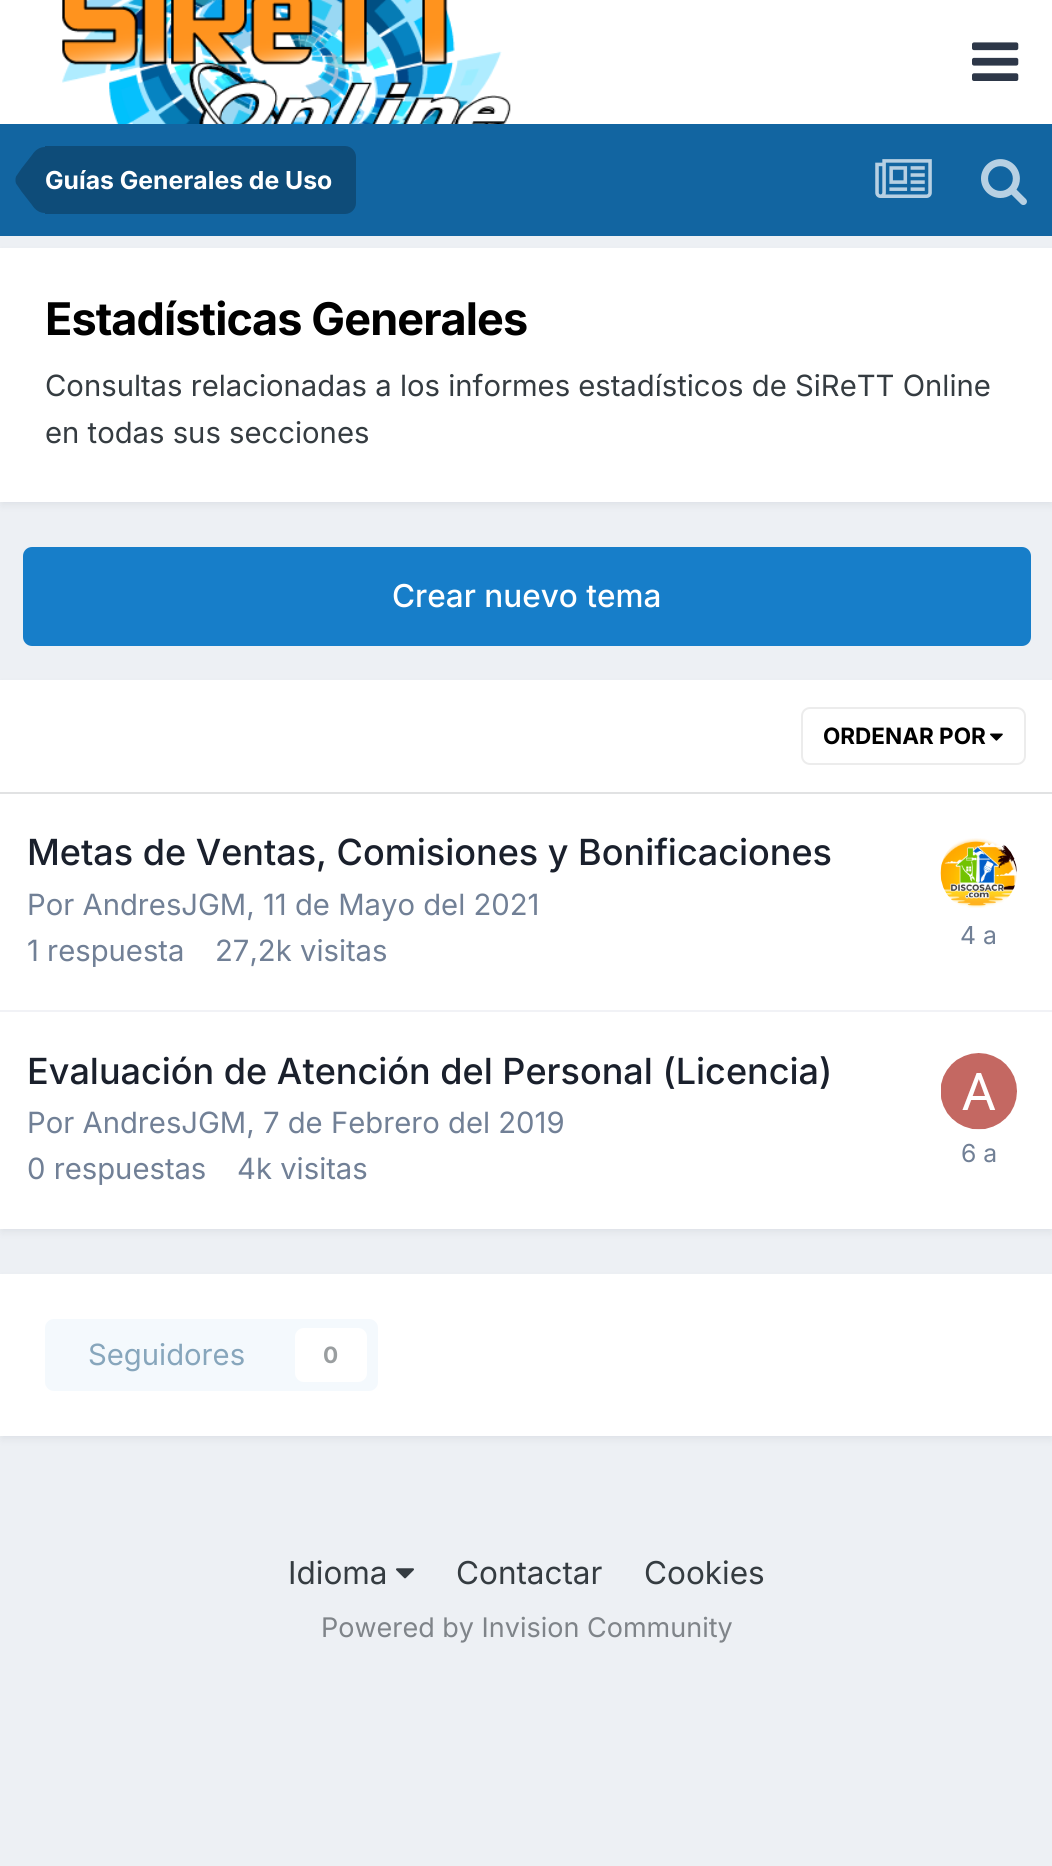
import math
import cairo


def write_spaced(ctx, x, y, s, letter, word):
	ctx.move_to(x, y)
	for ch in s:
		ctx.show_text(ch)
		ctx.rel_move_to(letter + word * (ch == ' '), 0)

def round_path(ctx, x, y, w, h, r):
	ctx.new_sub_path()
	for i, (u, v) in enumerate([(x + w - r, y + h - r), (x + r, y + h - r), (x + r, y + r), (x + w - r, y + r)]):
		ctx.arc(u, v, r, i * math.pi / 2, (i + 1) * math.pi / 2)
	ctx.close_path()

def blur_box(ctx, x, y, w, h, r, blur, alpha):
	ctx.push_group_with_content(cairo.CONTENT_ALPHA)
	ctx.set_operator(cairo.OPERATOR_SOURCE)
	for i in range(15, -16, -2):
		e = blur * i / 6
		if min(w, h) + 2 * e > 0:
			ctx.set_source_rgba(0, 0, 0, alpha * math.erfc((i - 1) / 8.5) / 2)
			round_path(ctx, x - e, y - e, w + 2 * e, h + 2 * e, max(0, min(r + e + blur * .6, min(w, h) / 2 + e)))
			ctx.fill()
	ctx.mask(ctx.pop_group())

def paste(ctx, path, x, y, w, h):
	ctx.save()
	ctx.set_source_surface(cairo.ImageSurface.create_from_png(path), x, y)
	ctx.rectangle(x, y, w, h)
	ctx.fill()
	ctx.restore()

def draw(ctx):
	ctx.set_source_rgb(0.929, 0.941, 0.957)
	ctx.paint()
	ctx.set_source_rgb(1, 1, 1)
	ctx.rectangle(0, 0, 1052, 124)
	ctx.fill()
	paste(ctx, 'media/1.png', 62, 0, 449, 124)
	paste(ctx, 'media/2.png', 972, 42, 47, 39)
	ctx.set_source_rgb(0.071, 0.396, 0.631)
	ctx.rectangle(0, 124, 1052, 112)
	ctx.fill()
	ctx.set_source_rgb(0.055, 0.298, 0.475)
	ctx.new_path()
	ctx.move_to(45, 146)
	ctx.line_to(345, 146)
	ctx.curve_to(351, 146, 356, 151, 356, 157)
	ctx.line_to(356, 203)
	ctx.curve_to(356, 209, 351, 214, 345, 214)
	ctx.line_to(45, 214)
	ctx.close_path()
	ctx.fill()
	ctx.new_path()
	ctx.move_to(45, 180)
	ctx.line_to(45, 213)
	ctx.curve_to(40, 213, 35.5, 210.5, 32, 205)
	ctx.line_to(21.5, 191.5)
	ctx.line_to(16, 183.5)
	ctx.curve_to(15.5, 182, 15.5, 181, 15.5, 180)
	ctx.close_path()
	ctx.fill()
	ctx.new_path()
	ctx.move_to(45, 180)
	ctx.line_to(15.5, 180)
	ctx.curve_to(15.5, 179, 15.5, 178, 16, 176.5)
	ctx.line_to(21.5, 168.5)
	ctx.line_to(32, 155)
	ctx.curve_to(35.5, 149.5, 40, 147, 45, 147)
	ctx.close_path()
	ctx.fill()
	ctx.select_font_face('Inter', cairo.FONT_SLANT_NORMAL, cairo.FONT_WEIGHT_BOLD)
	ctx.set_font_size(24.75)
	ctx.set_source_rgb(1, 1, 1)
	ctx.move_to(45, 189)
	ctx.show_text('Guías Generales de Uso')
	paste(ctx, 'media/3.png', 875, 159, 57, 39)
	paste(ctx, 'media/4.png', 981, 159, 46, 46)
	ctx.set_source_rgb(0.176, 0.216, 0.282)
	blur_box(ctx, 2, 254, 1049, 250, 0, 4.5, 0.1)
	ctx.set_source_rgb(1, 1, 1)
	ctx.rectangle(0, 248, 1052, 254)
	ctx.fill()
	ctx.set_font_size(45)
	ctx.set_source_rgb(0, 0, 0)
	write_spaced(ctx, 45, 335, 'Estadísticas Generales', -0.9, 0)
	ctx.select_font_face('Inter')
	ctx.set_font_size(29.25)
	ctx.set_source_rgb(0.208, 0.235, 0.255)
	ctx.move_to(45, 396)
	ctx.show_text('Consultas relacionadas a los informes estadísticos de SiReTT Online')
	ctx.move_to(45, 443)
	ctx.show_text('en todas sus secciones')
	ctx.set_source_rgb(0.09, 0.494, 0.788)
	round_path(ctx, 23, 547, 1008, 99, 9)
	ctx.fill()
	ctx.select_font_face('Inter Medium')
	ctx.set_font_size(31.5)
	ctx.set_source_rgb(1, 1, 1)
	ctx.move_to(392, 607)
	ctx.show_text('Crear nuevo tema')
	ctx.set_source_rgb(0.176, 0.216, 0.282)
	blur_box(ctx, 2, 686, 1049, 545, 0, 4.5, 0.1)
	ctx.set_source_rgb(1, 1, 1)
	ctx.rectangle(0, 680, 1052, 549)
	ctx.fill()
	ctx.set_source_rgb(0.882, 0.886, 0.89)
	ctx.rectangle(0, 792, 1052, 2)
	ctx.fill()
	paste(ctx, 'media/5.png', 990, 733, 13, 8)
	round_path(ctx, 802, 708, 223, 56, 8)
	ctx.set_source_rgb(0.922, 0.925, 0.925)
	ctx.stroke()
	ctx.select_font_face('Inter', cairo.FONT_SLANT_NORMAL, cairo.FONT_WEIGHT_BOLD)
	ctx.set_font_size(22.5)
	ctx.set_source_rgb(0, 0, 0)
	ctx.move_to(823, 744)
	ctx.show_text('ORDENAR POR')
	ctx.set_source_rgb(0.945, 0.949, 0.961)
	ctx.rectangle(0, 1010, 1052, 2)
	ctx.fill()
	ctx.select_font_face('Inter Medium')
	ctx.set_font_size(36)
	ctx.set_source_rgb(0.102, 0.125, 0.173)
	ctx.move_to(27, 865)
	ctx.show_text('Metas de Ventas, Comisiones y Bonificaciones')
	ctx.select_font_face('Inter')
	ctx.set_font_size(29.25)
	ctx.set_source_rgb(0.443, 0.502, 0.588)
	ctx.move_to(27, 915)
	ctx.show_text('Por AndresJGM, 11 de Mayo del 2021')
	paste(ctx, 'media/6.png', 940, 838, 77, 70)
	ctx.set_font_size(24.75)
	ctx.move_to(960, 944)
	ctx.show_text('4 a')
	ctx.set_font_size(29.25)
	ctx.move_to(27, 961)
	ctx.show_text('1 respuesta')
	ctx.move_to(215, 961)
	ctx.show_text('27,2k visitas')
	ctx.select_font_face('Inter Medium')
	ctx.set_font_size(36)
	ctx.set_source_rgb(0.102, 0.125, 0.173)
	ctx.move_to(27, 1084)
	ctx.show_text('Evaluación de Atención del Personal (Licencia)')
	ctx.select_font_face('Inter')
	ctx.set_font_size(29.25)
	ctx.set_source_rgb(0.443, 0.502, 0.588)
	ctx.move_to(27, 1133)
	ctx.show_text('Por AndresJGM, 7 de Febrero del 2019')
	paste(ctx, 'media/7.png', 941, 1053, 76, 77)
	ctx.set_font_size(24.75)
	ctx.move_to(961, 1162)
	ctx.show_text('6 a')
	ctx.set_font_size(29.25)
	ctx.move_to(27, 1179)
	ctx.show_text('0 respuestas')
	ctx.move_to(237, 1179)
	ctx.show_text('4k visitas')
	ctx.set_source_rgb(0.176, 0.216, 0.282)
	blur_box(ctx, 2, 1280, 1049, 158, 0, 4.5, 0.1)
	ctx.set_source_rgb(1, 1, 1)
	ctx.rectangle(0, 1274, 1052, 162)
	ctx.fill()
	ctx.set_source_rgb(0.957, 0.976, 0.992)
	round_path(ctx, 45, 1319, 333, 72, 9)
	ctx.fill()
	ctx.set_source_rgb(0.529, 0.651, 0.737)
	ctx.move_to(88, 1365)
	ctx.show_text('Seguidores')
	ctx.set_source_rgb(1, 1, 1)
	round_path(ctx, 295, 1328, 72, 54, 9)
	ctx.fill()
	ctx.select_font_face('Inter', cairo.FONT_SLANT_NORMAL, cairo.FONT_WEIGHT_BOLD)
	ctx.set_font_size(22.5)
	ctx.set_source_rgb(0.604, 0.62, 0.627)
	ctx.move_to(323, 1363)
	ctx.show_text('0')
	ctx.select_font_face('Inter')
	ctx.set_font_size(31.5)
	ctx.set_source_rgb(0.208, 0.235, 0.255)
	ctx.move_to(288, 1584)
	ctx.show_text('Idioma')
	paste(ctx, 'media/8.png', 396, 1568, 18, 11)
	ctx.move_to(456, 1584)
	ctx.show_text('Contactar')
	ctx.move_to(644, 1584)
	ctx.show_text('Cookies')
	ctx.set_font_size(27)
	ctx.set_source_rgb(0.498, 0.518, 0.537)
	ctx.move_to(321, 1637)
	ctx.show_text('Powered by Invision Community')


surface = cairo.ImageSurface(cairo.FORMAT_RGB24, 1052, 1866)
ctx = cairo.Context(surface)
options = cairo.FontOptions()
options.set_hint_metrics(cairo.HINT_METRICS_OFF)
options.set_hint_style(cairo.HINT_STYLE_NONE)
ctx.set_font_options(options)
ctx.set_miter_limit(4)
draw(ctx)
surface.write_to_png('image.png')
